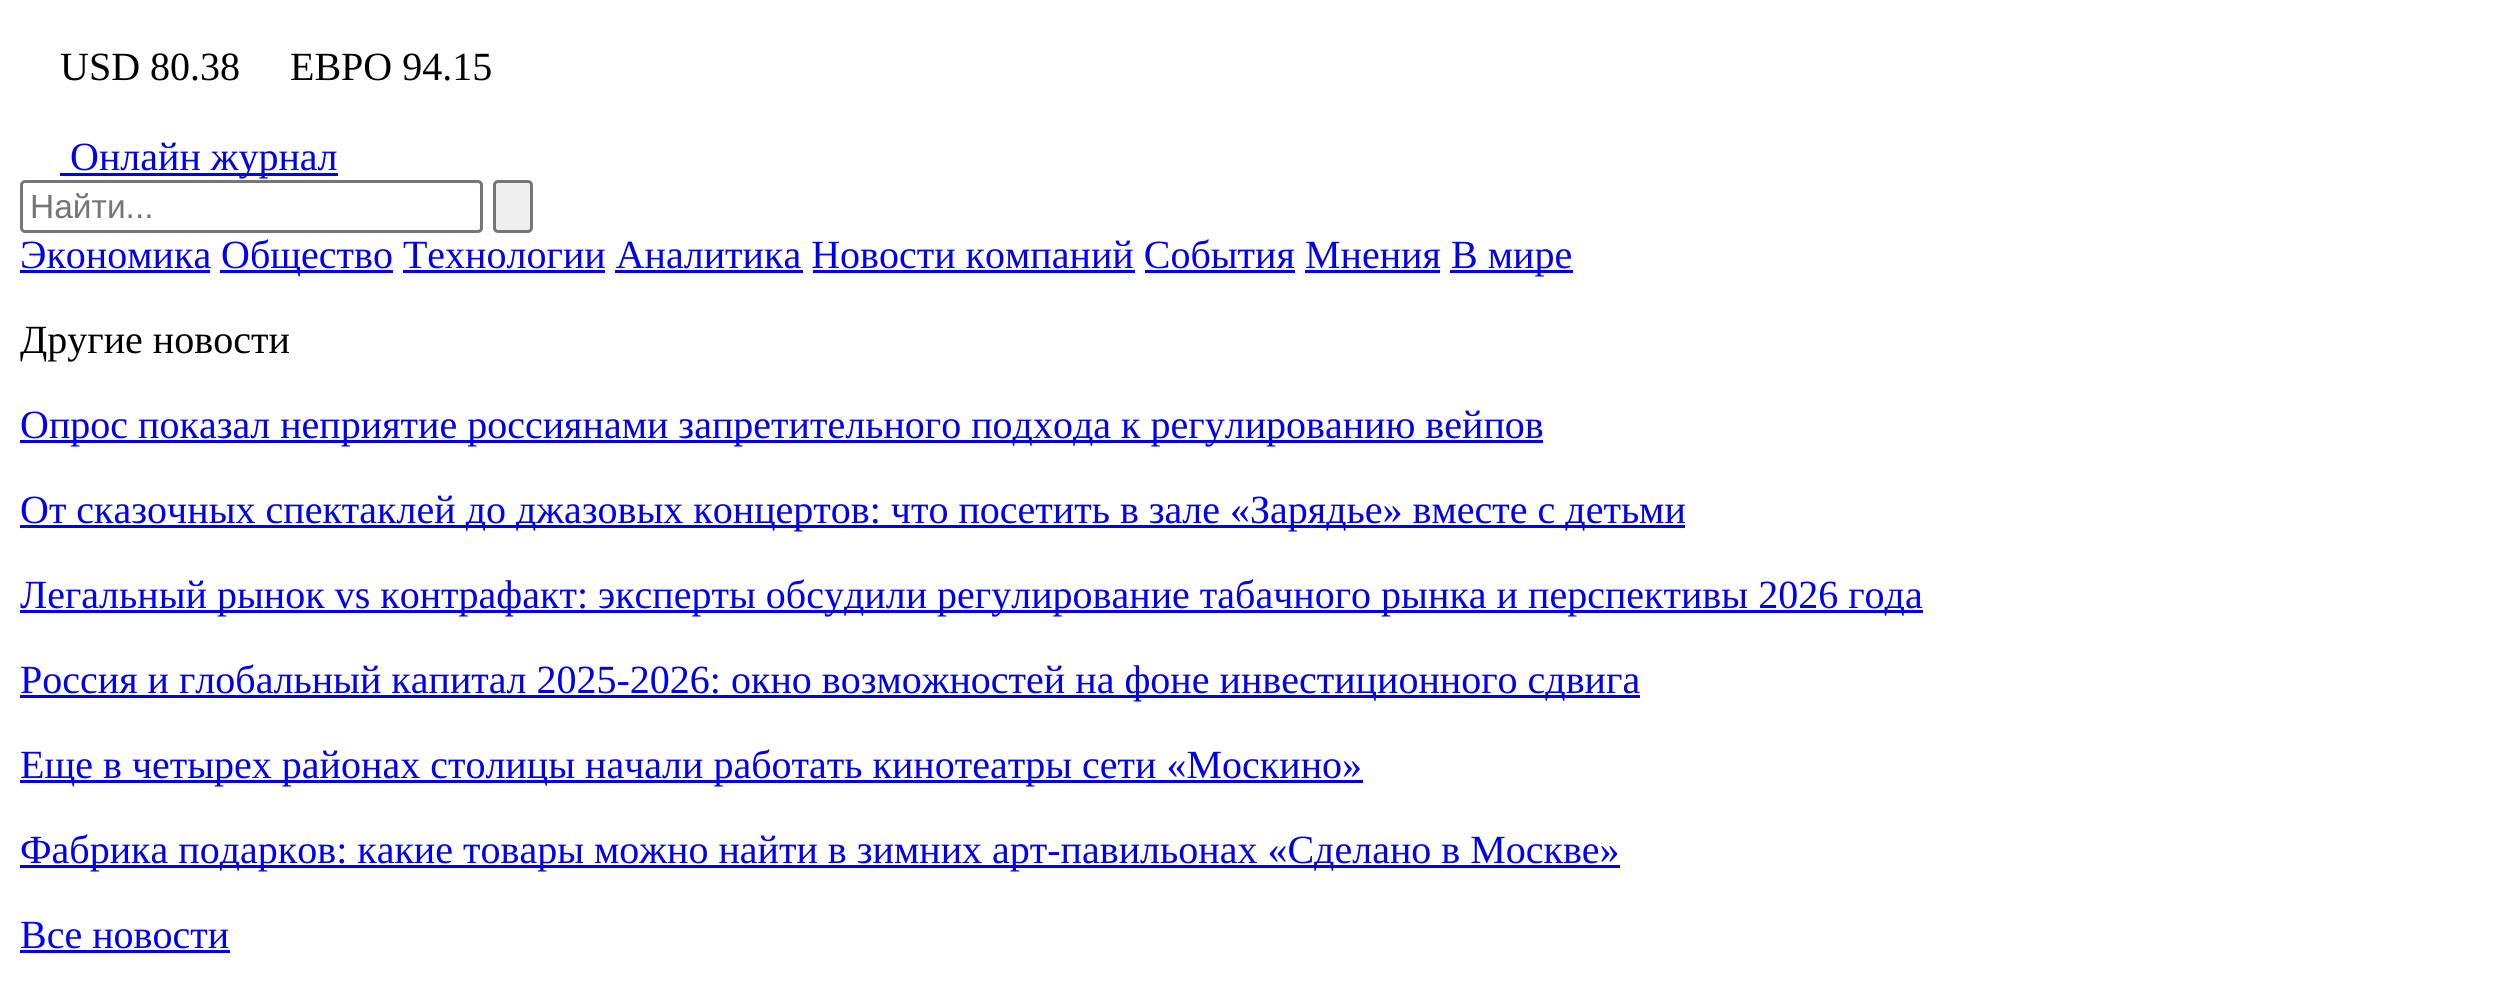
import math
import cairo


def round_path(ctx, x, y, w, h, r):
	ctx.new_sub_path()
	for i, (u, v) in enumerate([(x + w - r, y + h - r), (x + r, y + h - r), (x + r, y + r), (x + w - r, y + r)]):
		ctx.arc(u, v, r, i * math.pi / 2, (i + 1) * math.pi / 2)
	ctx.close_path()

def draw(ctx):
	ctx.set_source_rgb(1, 1, 1)
	ctx.paint()
	ctx.select_font_face('Liberation Serif')
	ctx.set_font_size(40)
	ctx.set_source_rgb(0, 0, 0)
	ctx.move_to(60, 80)
	ctx.show_text('USD 80.38')
	ctx.move_to(290, 80)
	ctx.show_text('ЕВРО 94.15')
	ctx.set_source_rgb(0, 0, 0.933)
	ctx.rectangle(60, 173, 278, 3)
	ctx.fill()
	ctx.move_to(70, 170)
	ctx.show_text('Онлайн журнал')
	round_path(ctx, 21.5, 181.5, 460, 50, 3.5)
	ctx.set_source_rgb(0.463, 0.463, 0.463)
	ctx.set_line_width(3)
	ctx.stroke()
	ctx.select_font_face('Liberation Sans')
	ctx.set_font_size(33.5)
	ctx.set_source_rgb(0.459, 0.459, 0.459)
	ctx.move_to(30, 218)
	ctx.show_text('Найти...')
	ctx.set_source_rgb(0.937, 0.937, 0.937)
	round_path(ctx, 494.5, 181.5, 37, 50, 3.5)
	ctx.fill_preserve()
	ctx.set_source_rgb(0.463, 0.463, 0.463)
	ctx.stroke()
	ctx.select_font_face('Liberation Serif')
	ctx.set_font_size(40)
	ctx.set_source_rgb(0, 0, 0.933)
	ctx.move_to(20, 268)
	ctx.show_text('Экономика')
	ctx.rectangle(20, 270, 190, 3)
	ctx.fill()
	ctx.rectangle(220, 270, 173, 3)
	ctx.fill()
	ctx.move_to(221, 268)
	ctx.show_text('Общество Технологии Аналитика Новости компаний События Мнения')
	ctx.rectangle(1450, 270, 123, 3)
	ctx.fill()
	ctx.move_to(1451, 268)
	ctx.show_text('В мире')
	ctx.rectangle(403, 270, 202, 3)
	ctx.rectangle(615, 270, 188, 3)
	ctx.rectangle(813, 270, 322, 3)
	ctx.rectangle(1145, 270, 150, 3)
	ctx.rectangle(1305, 270, 135, 3)
	ctx.fill()
	ctx.set_source_rgb(0, 0, 0)
	ctx.move_to(20, 353)
	ctx.show_text('Другие новости')
	ctx.set_source_rgb(0, 0, 0.933)
	ctx.rectangle(20, 440, 1523, 3)
	ctx.fill()
	ctx.move_to(20, 438)
	ctx.show_text('Опрос показал неприятие россиянами запретительного подхода к регулированию вейпов')
	ctx.rectangle(20, 525, 1665, 3)
	ctx.fill()
	ctx.move_to(20, 523)
	ctx.show_text('От сказочных спектаклей до джазовых концертов: что посетить в зале «Зарядье» вместе с детьми')
	ctx.rectangle(20, 610, 1903, 3)
	ctx.fill()
	ctx.move_to(20, 608)
	ctx.show_text('Легальный рынок vs контрафакт: эксперты обсудили регулирование табачного рынка и перспективы 2026 года')
	ctx.rectangle(20, 695, 1620, 3)
	ctx.fill()
	ctx.move_to(20, 693)
	ctx.show_text('Россия и глобальный капитал 2025-2026: окно возможностей на фоне инвестиционного сдвига')
	ctx.rectangle(20, 780, 1343, 3)
	ctx.fill()
	ctx.move_to(20, 778)
	ctx.show_text('Еще в четырех районах столицы начали работать кинотеатры сети «Москино»')
	ctx.rectangle(20, 865, 1600, 3)
	ctx.fill()
	ctx.move_to(20, 863)
	ctx.show_text('Фабрика подарков: какие товары можно найти в зимних арт-павильонах «Сделано в Москве»')
	ctx.move_to(20, 948)
	ctx.show_text('Все новости')
	ctx.rectangle(20, 950, 210, 3)
	ctx.fill()


surface = cairo.ImageSurface(cairo.FORMAT_RGB24, 2497, 1003)
ctx = cairo.Context(surface)
options = cairo.FontOptions()
options.set_hint_metrics(cairo.HINT_METRICS_OFF)
options.set_hint_style(cairo.HINT_STYLE_NONE)
ctx.set_font_options(options)
ctx.set_miter_limit(4)
draw(ctx)
surface.write_to_png('image.png')
